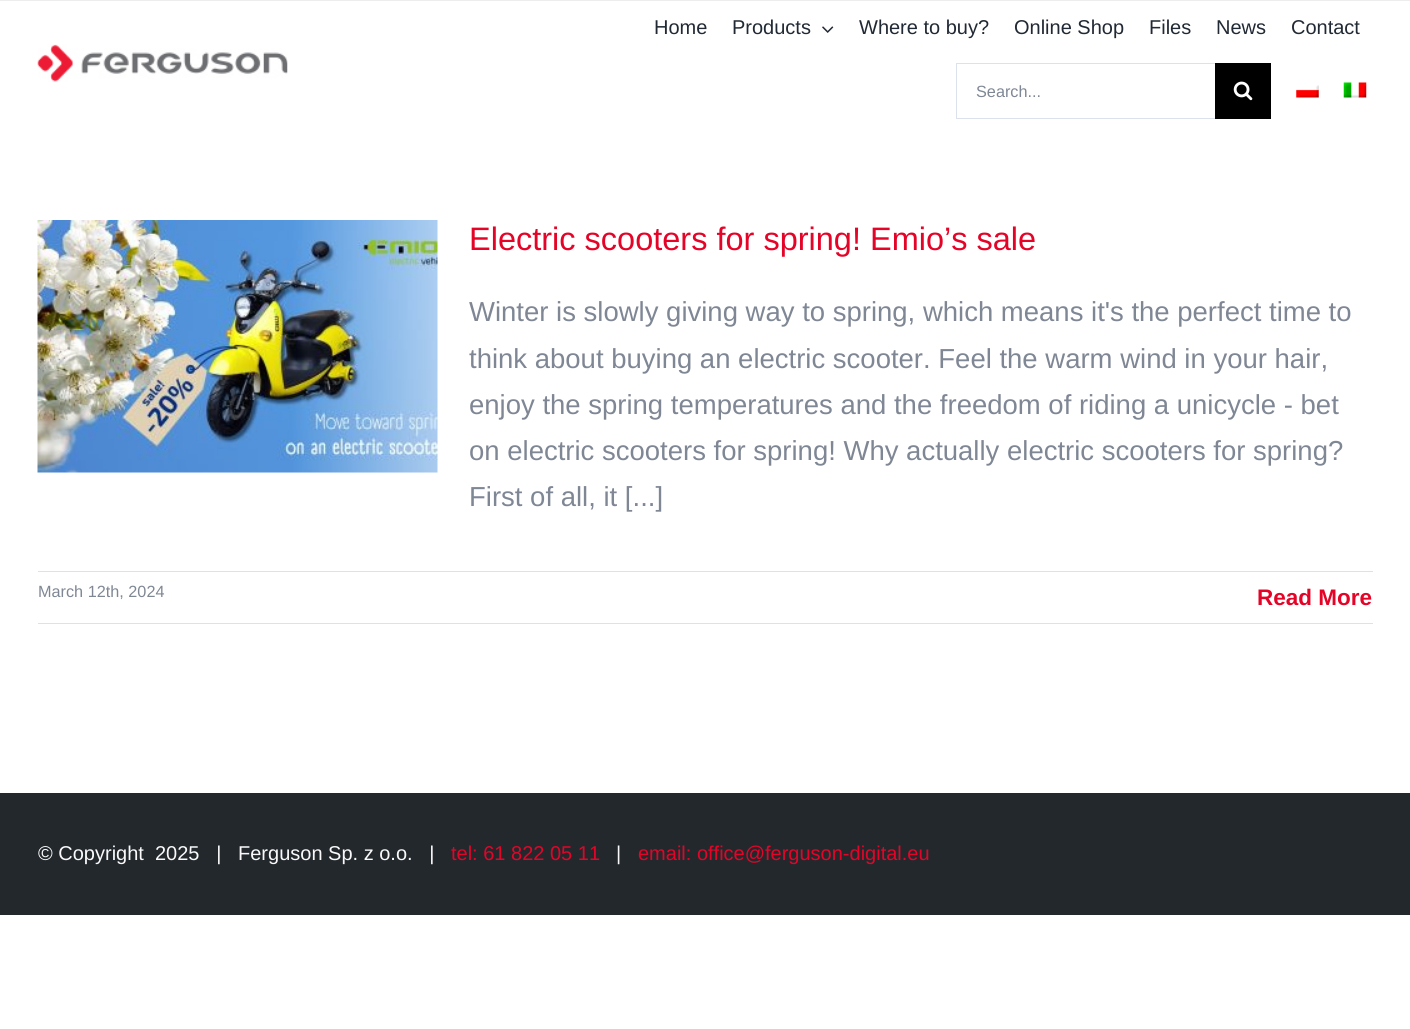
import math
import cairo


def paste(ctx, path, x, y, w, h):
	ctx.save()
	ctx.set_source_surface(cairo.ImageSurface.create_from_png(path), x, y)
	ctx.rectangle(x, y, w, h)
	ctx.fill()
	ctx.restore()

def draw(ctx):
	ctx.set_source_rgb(1, 1, 1)
	ctx.paint()
	ctx.set_source_rgb(0.929, 0.929, 0.929)
	ctx.rectangle(0, 0, 1410, 1)
	ctx.fill()
	paste(ctx, 'media/1.png', 37, 44, 251, 38)
	ctx.select_font_face('Liberation Sans')
	ctx.set_font_size(20)
	ctx.set_source_rgb(0.129, 0.161, 0.204)
	ctx.move_to(654, 34)
	ctx.show_text('Home')
	ctx.move_to(732, 34)
	ctx.show_text('Products')
	paste(ctx, 'media/2.png', 822, 26, 12, 7)
	for x, y, s in [
		(859, 34, 'Where to buy?'),
		(1014, 34, 'Online Shop'),
		(1149, 34, 'Files'),
		(1216, 34, 'News'),
		(1291, 34, 'Contact'),
	]:
		ctx.move_to(x, y)
		ctx.show_text(s)
	ctx.set_source_rgb(0.859, 0.886, 0.918)
	ctx.rectangle(956, 63, 259, 1)
	ctx.rectangle(956, 118, 259, 1)
	ctx.rectangle(956, 63, 1, 56)
	ctx.fill()
	ctx.set_font_size(16.25)
	ctx.set_source_rgb(0.498, 0.529, 0.584)
	ctx.move_to(976, 97)
	ctx.show_text('Search...')
	ctx.set_source_rgb(0, 0, 0)
	ctx.rectangle(1215, 63, 56, 56)
	ctx.fill()
	paste(ctx, 'media/3.png', 1233, 81, 20, 20)
	paste(ctx, 'media/4.png', 1296, 85, 23, 13)
	paste(ctx, 'media/5.png', 1343, 82, 24, 16)
	paste(ctx, 'media/6.png', 37, 220, 401, 253)
	ctx.set_font_size(32.5)
	ctx.set_source_rgb(0.894, 0.016, 0.157)
	ctx.move_to(469, 250)
	ctx.show_text('Electric scooters for spring! Emio’s sale')
	ctx.set_font_size(27.5)
	ctx.set_source_rgb(0.498, 0.529, 0.584)
	for x, y, s in [
		(469, 321, 'Winter is slowly giving way to spring, which means it\'s the perfect time to'),
		(469, 368, 'think about buying an electric scooter. Feel the warm wind in your hair,'),
		(469, 414, 'enjoy the spring temperatures and the freedom of riding a unicycle - bet'),
		(469, 460, 'on electric scooters for spring! Why actually electric scooters for spring?'),
		(469, 506, 'First of all, it [...]'),
	]:
		ctx.move_to(x, y)
		ctx.show_text(s)
	ctx.set_source_rgb(0.859, 0.886, 0.918)
	ctx.rectangle(38, 571, 1335, 1)
	ctx.fill()
	ctx.rectangle(38, 623, 1335, 1)
	ctx.fill()
	ctx.set_font_size(16.25)
	ctx.set_source_rgb(0.498, 0.529, 0.584)
	ctx.move_to(38, 597)
	ctx.show_text('March 12th, 2024')
	ctx.select_font_face('Liberation Sans', cairo.FONT_SLANT_NORMAL, cairo.FONT_WEIGHT_BOLD)
	ctx.set_font_size(22.5)
	ctx.set_source_rgb(0.894, 0.016, 0.157)
	ctx.move_to(1257, 605)
	ctx.show_text('Read More')
	ctx.set_source_rgb(0.137, 0.157, 0.176)
	ctx.rectangle(0, 793, 1410, 122)
	ctx.fill()
	ctx.select_font_face('Liberation Sans')
	ctx.set_font_size(20)
	ctx.set_source_rgb(0.976, 0.976, 0.976)
	ctx.move_to(38, 860)
	ctx.show_text('© Copyright')
	ctx.move_to(155, 860)
	ctx.show_text('2025   |   Ferguson Sp. z o.o.   |')
	ctx.set_source_rgb(0.894, 0.016, 0.157)
	ctx.move_to(451, 860)
	ctx.show_text('tel: 61 822 05 11')
	ctx.set_source_rgb(0.976, 0.976, 0.976)
	ctx.move_to(616, 860)
	ctx.show_text('|')
	ctx.set_source_rgb(0.894, 0.016, 0.157)
	ctx.move_to(638, 860)
	ctx.show_text('email: office@ferguson-digital.eu')


surface = cairo.ImageSurface(cairo.FORMAT_RGB24, 1410, 1029)
ctx = cairo.Context(surface)
options = cairo.FontOptions()
options.set_hint_metrics(cairo.HINT_METRICS_OFF)
options.set_hint_style(cairo.HINT_STYLE_NONE)
ctx.set_font_options(options)
ctx.set_miter_limit(4)
draw(ctx)
surface.write_to_png('image.png')
